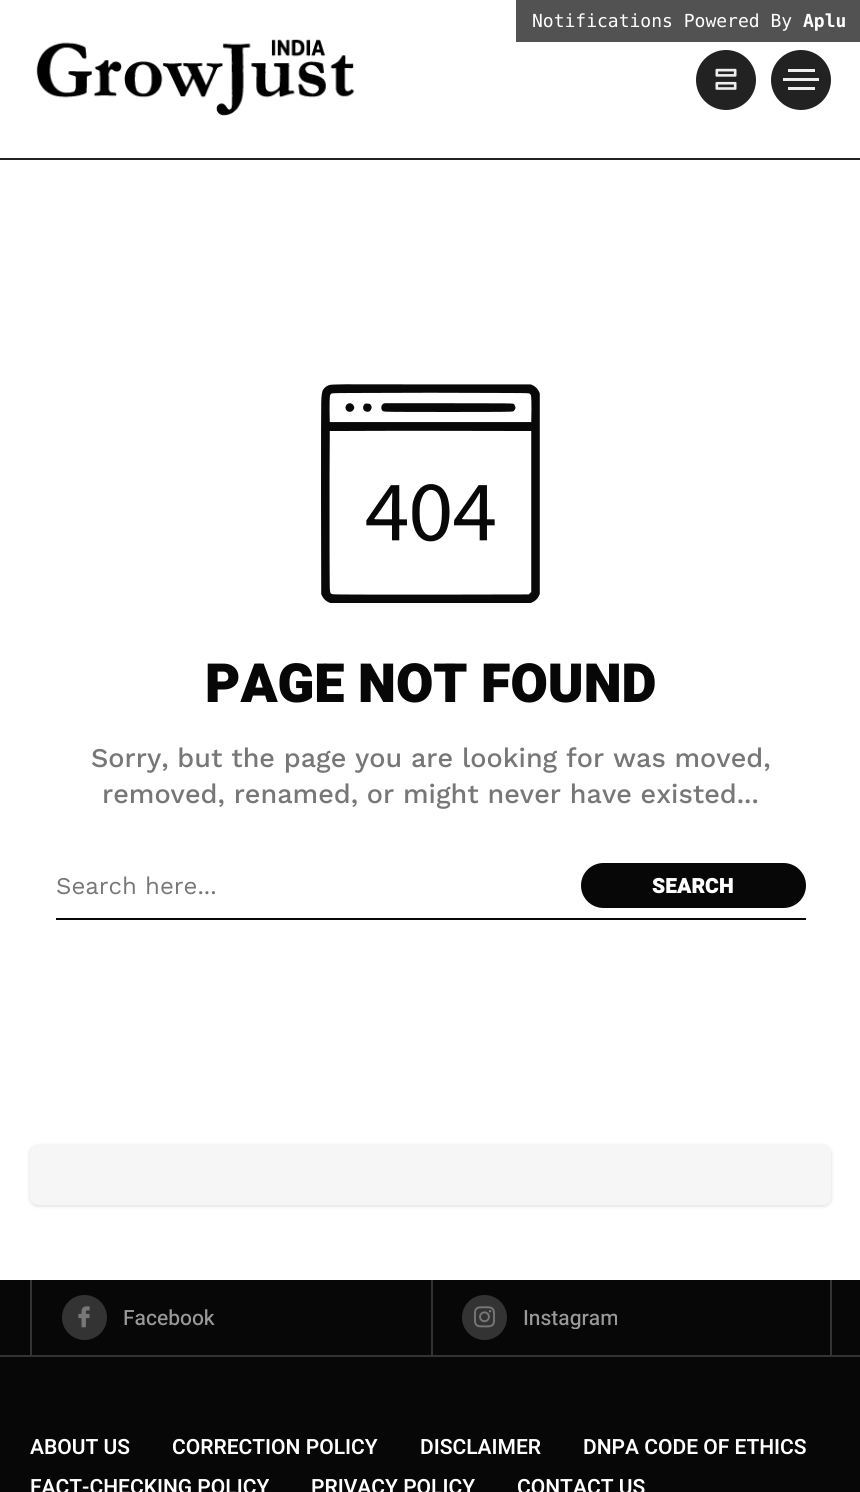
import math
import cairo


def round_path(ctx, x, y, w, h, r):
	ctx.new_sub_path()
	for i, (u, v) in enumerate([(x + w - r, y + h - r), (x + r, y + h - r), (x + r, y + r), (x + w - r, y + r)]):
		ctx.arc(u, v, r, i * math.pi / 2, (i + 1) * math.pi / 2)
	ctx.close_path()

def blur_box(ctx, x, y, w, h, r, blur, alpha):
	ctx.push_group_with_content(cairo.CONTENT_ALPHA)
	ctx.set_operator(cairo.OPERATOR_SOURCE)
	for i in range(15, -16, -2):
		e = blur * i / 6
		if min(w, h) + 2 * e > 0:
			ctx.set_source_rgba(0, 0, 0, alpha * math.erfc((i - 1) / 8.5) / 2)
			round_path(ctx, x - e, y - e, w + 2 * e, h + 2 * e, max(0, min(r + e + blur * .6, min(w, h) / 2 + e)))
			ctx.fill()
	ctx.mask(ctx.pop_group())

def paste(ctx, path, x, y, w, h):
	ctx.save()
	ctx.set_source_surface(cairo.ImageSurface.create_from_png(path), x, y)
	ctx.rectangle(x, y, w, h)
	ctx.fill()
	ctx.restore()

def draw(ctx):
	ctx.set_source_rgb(1, 1, 1)
	ctx.paint()
	ctx.set_source_rgb(0.322, 0.322, 0.322)
	ctx.rectangle(516, 0, 344, 42)
	ctx.fill()
	ctx.select_font_face('DejaVu Sans Mono')
	ctx.set_font_size(18)
	ctx.set_source_rgb(1, 1, 1)
	ctx.move_to(532, 27)
	ctx.show_text('Notifications Powered By')
	ctx.select_font_face('DejaVu Sans Mono', cairo.FONT_SLANT_NORMAL, cairo.FONT_WEIGHT_BOLD)
	ctx.move_to(803, 27)
	ctx.show_text('Aplu')
	ctx.set_source_rgb(0.133, 0.133, 0.133)
	ctx.rectangle(0, 158, 860, 2)
	ctx.fill()
	paste(ctx, 'media/1.png', 36, 39, 319, 77)
	ctx.arc(726, 80, 30, 0, 2 * math.pi)
	ctx.fill()
	paste(ctx, 'media/2.png', 715, 68, 22, 22)
	ctx.arc(801, 80, 30, 0, 2 * math.pi)
	ctx.fill()
	ctx.set_source_rgb(0.933, 0.933, 0.933)
	ctx.rectangle(783, 78, 36, 3)
	ctx.rectangle(788, 69, 27, 3)
	ctx.rectangle(788, 87, 27, 3)
	ctx.fill()
	paste(ctx, 'media/3.png', 321, 384, 219, 219)
	ctx.select_font_face('Heebo Black')
	ctx.set_font_size(54)
	ctx.set_source_rgb(0.031, 0.031, 0.031)
	ctx.move_to(205, 702)
	ctx.show_text('PAGE NOT FOUND')
	ctx.select_font_face('Work Sans Medium')
	ctx.set_font_size(27)
	ctx.set_source_rgb(0.467, 0.467, 0.467)
	ctx.move_to(91, 767)
	ctx.show_text('Sorry, but the page you are looking for was moved,')
	ctx.move_to(102, 803)
	ctx.show_text('removed, renamed, or might never have existed...')
	ctx.set_source_rgb(0.031, 0.031, 0.031)
	ctx.rectangle(56, 918, 750, 2)
	ctx.fill()
	ctx.select_font_face('Work Sans')
	ctx.set_font_size(24)
	ctx.set_source_rgb(0.467, 0.467, 0.467)
	ctx.move_to(56, 894)
	ctx.show_text('Search here...')
	ctx.set_source_rgb(0.031, 0.031, 0.031)
	round_path(ctx, 581, 863, 225, 45, 22.5)
	ctx.fill()
	ctx.select_font_face('Heebo Black')
	ctx.set_font_size(21)
	ctx.set_source_rgb(1, 1, 1)
	ctx.move_to(652, 893)
	ctx.show_text('SEARCH')
	ctx.set_source_rgb(0, 0, 0)
	blur_box(ctx, 30, 1146, 801, 60, 8, 2, 0.15)
	ctx.set_source_rgb(0.961, 0.961, 0.961)
	round_path(ctx, 30, 1145, 801, 60, 8)
	ctx.fill()
	ctx.set_source_rgb(0.031, 0.031, 0.031)
	ctx.rectangle(0, 1280, 860, 212)
	ctx.fill()
	ctx.set_source_rgb(0.2, 0.2, 0.2)
	ctx.rectangle(0, 1355, 860, 2)
	ctx.rectangle(30, 1280, 2, 76)
	ctx.rectangle(431, 1280, 2, 76)
	ctx.fill()
	ctx.arc(84.5, 1317.5, 22.5, 0, 2 * math.pi)
	ctx.fill()
	paste(ctx, 'media/4.png', 78, 1306, 12, 22)
	ctx.select_font_face('Heebo Medium')
	ctx.set_source_rgb(0.6, 0.6, 0.6)
	ctx.move_to(123, 1325)
	ctx.show_text('Facebook')
	ctx.set_source_rgb(0.2, 0.2, 0.2)
	ctx.rectangle(830, 1280, 2, 76)
	ctx.fill()
	ctx.arc(484.5, 1317.5, 22.5, 0, 2 * math.pi)
	ctx.fill()
	paste(ctx, 'media/5.png', 474, 1306, 21, 22)
	ctx.save()
	ctx.rectangle(524, 1308, 94, 21)
	ctx.clip()
	ctx.set_source_rgb(0.6, 0.6, 0.6)
	ctx.move_to(523, 1325)
	ctx.show_text('Instagram')
	ctx.restore()
	ctx.select_font_face('Heebo SemiBold')
	ctx.set_source_rgb(1, 1, 1)
	for x, y, s in [
		(30, 1454, 'ABOUT US'),
		(172, 1454, 'CORRECTION POLICY'),
		(420, 1454, 'DISCLAIMER'),
		(583, 1454, 'DNPA CODE OF ETHICS'),
		(30, 1494, 'FACT-CHECKING POLICY'),
		(311, 1494, 'PRIVACY POLICY'),
		(517, 1494, 'CONTACT US'),
	]:
		ctx.move_to(x, y)
		ctx.show_text(s)


surface = cairo.ImageSurface(cairo.FORMAT_RGB24, 860, 1492)
ctx = cairo.Context(surface)
options = cairo.FontOptions()
options.set_hint_metrics(cairo.HINT_METRICS_OFF)
options.set_hint_style(cairo.HINT_STYLE_NONE)
ctx.set_font_options(options)
ctx.set_miter_limit(4)
draw(ctx)
surface.write_to_png('image.png')
